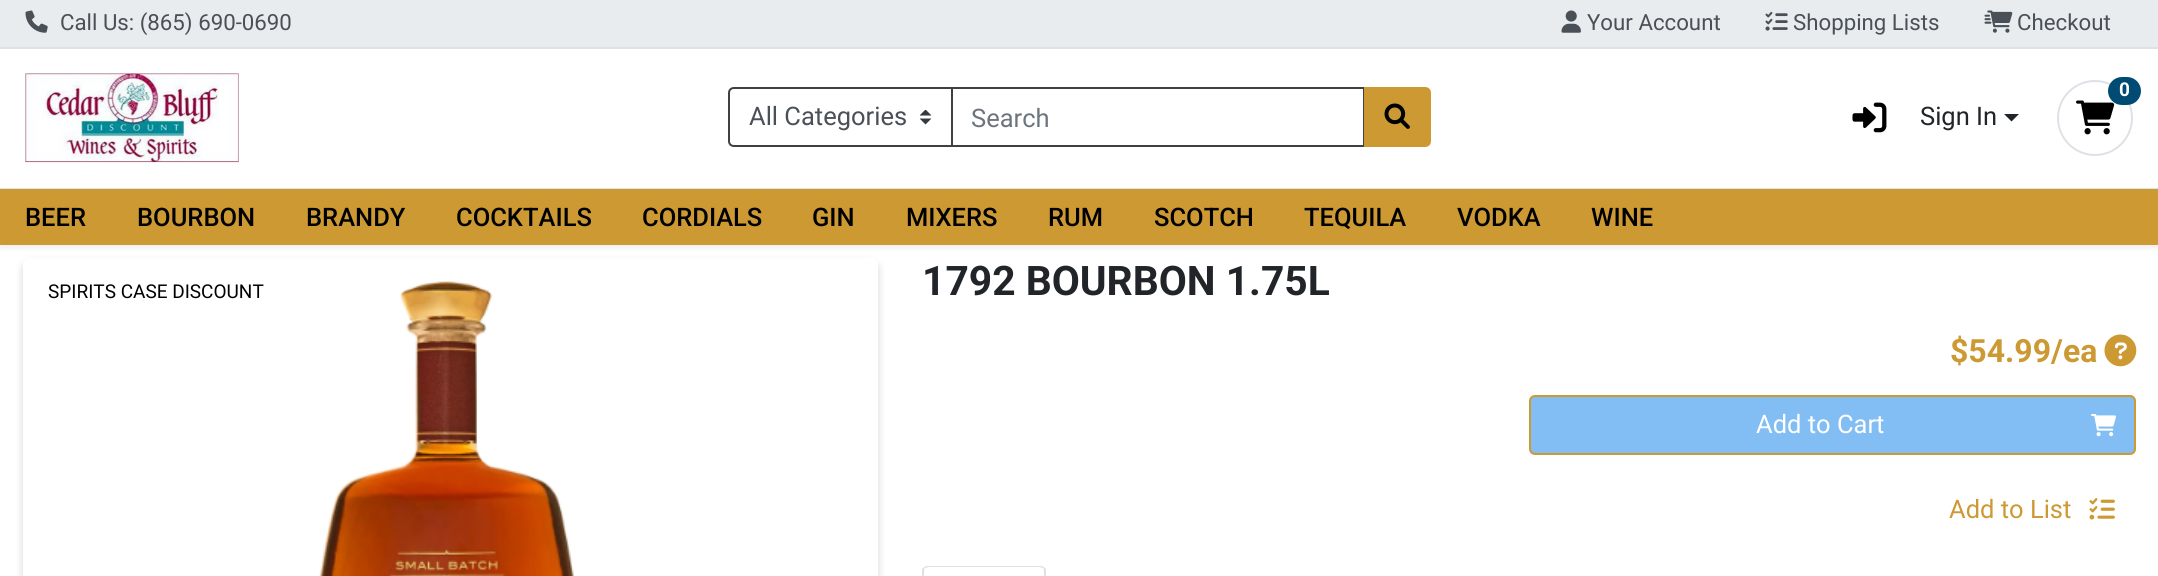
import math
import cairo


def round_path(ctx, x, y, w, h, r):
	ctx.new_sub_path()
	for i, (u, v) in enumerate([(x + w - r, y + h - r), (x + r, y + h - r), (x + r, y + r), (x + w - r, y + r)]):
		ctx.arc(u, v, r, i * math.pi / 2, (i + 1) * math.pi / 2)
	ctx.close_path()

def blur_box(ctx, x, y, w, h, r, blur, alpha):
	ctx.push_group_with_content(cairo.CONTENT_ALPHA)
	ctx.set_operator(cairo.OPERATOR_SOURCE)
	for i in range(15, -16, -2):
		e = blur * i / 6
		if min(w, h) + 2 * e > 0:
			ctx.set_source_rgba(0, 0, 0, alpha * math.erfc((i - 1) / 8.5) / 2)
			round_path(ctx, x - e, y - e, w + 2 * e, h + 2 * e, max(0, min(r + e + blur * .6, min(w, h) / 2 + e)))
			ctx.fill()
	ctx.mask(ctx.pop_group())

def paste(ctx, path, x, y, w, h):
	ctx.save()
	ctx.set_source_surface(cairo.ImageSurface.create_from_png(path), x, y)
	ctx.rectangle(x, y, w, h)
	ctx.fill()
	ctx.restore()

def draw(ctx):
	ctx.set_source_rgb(1, 1, 1)
	ctx.paint()
	ctx.set_source_rgb(0, 0, 0)
	blur_box(ctx, 0, 3, 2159, 245, 0, 3, 0.07)
	ctx.set_source_rgb(1, 1, 1)
	ctx.rectangle(0, 49, 2158, 139)
	ctx.fill()
	ctx.set_source_rgb(0.914, 0.925, 0.937)
	ctx.rectangle(0, 0, 2158, 47)
	ctx.fill()
	ctx.set_source_rgb(0.871, 0.886, 0.902)
	ctx.rectangle(0, 47, 2158, 2)
	ctx.fill()
	paste(ctx, 'media/1.png', 25, 10, 23, 23)
	ctx.select_font_face('Roboto')
	ctx.set_font_size(22.25)
	ctx.set_source_rgb(0.286, 0.314, 0.341)
	ctx.move_to(60, 30)
	ctx.show_text('Call Us: (865) 690-0690')
	paste(ctx, 'media/2.png', 1561, 10, 20, 23)
	ctx.move_to(1587, 30)
	ctx.show_text('Your Account')
	paste(ctx, 'media/3.png', 1765, 11, 23, 20)
	ctx.move_to(1793, 30)
	ctx.show_text('Shopping Lists')
	paste(ctx, 'media/4.png', 1984, 10, 29, 23)
	ctx.move_to(2017, 30)
	ctx.show_text('Checkout')
	ctx.set_source_rgb(0.871, 0.886, 0.902)
	ctx.rectangle(0, 188, 2158, 1)
	ctx.fill()
	paste(ctx, 'media/5.png', 25, 73, 214, 90)
	ctx.rectangle(952, 88, 412, 58)
	ctx.set_source_rgb(0.251, 0.251, 0.251)
	ctx.stroke()
	ctx.set_source_rgb(1, 1, 1)
	ctx.new_path()
	ctx.move_to(734, 87)
	ctx.line_to(953, 87)
	ctx.line_to(953, 147)
	ctx.line_to(734, 147)
	ctx.curve_to(730.5, 147, 728, 144.5, 728, 141)
	ctx.line_to(728, 93)
	ctx.curve_to(728, 89.5, 730.5, 87, 734, 87)
	ctx.close_path()
	ctx.fill()
	paste(ctx, 'media/6.png', 920, 110, 12, 15)
	ctx.new_path()
	ctx.move_to(734, 88)
	ctx.line_to(952, 88)
	ctx.line_to(952, 146)
	ctx.line_to(734, 146)
	ctx.curve_to(731, 146, 729, 144, 729, 141)
	ctx.line_to(729, 93)
	ctx.curve_to(729, 90, 731, 88, 734, 88)
	ctx.close_path()
	ctx.set_source_rgb(0.251, 0.251, 0.251)
	ctx.stroke()
	ctx.set_font_size(25.5)
	ctx.set_source_rgb(0.286, 0.314, 0.341)
	ctx.move_to(749, 125)
	ctx.show_text('All Categories')
	ctx.set_source_rgb(0.424, 0.459, 0.49)
	ctx.move_to(971, 127)
	ctx.show_text('Search')
	ctx.set_source_rgb(0.8, 0.6, 0.2)
	ctx.new_path()
	ctx.move_to(1365, 88)
	ctx.line_to(1425, 88)
	ctx.curve_to(1428, 88, 1430, 90, 1430, 93)
	ctx.line_to(1430, 141)
	ctx.curve_to(1430, 144, 1428, 146, 1425, 146)
	ctx.line_to(1365, 146)
	ctx.close_path()
	ctx.fill_preserve()
	ctx.stroke()
	paste(ctx, 'media/7.png', 1384, 103, 26, 26)
	ctx.arc(2095, 118, 37, 0, 2 * math.pi)
	ctx.set_source_rgb(0.871, 0.886, 0.902)
	ctx.stroke()
	paste(ctx, 'media/8.png', 2076, 100, 39, 35)
	ctx.set_source_rgb(0, 0.294, 0.451)
	round_path(ctx, 2108, 77, 33, 28, 14)
	ctx.fill()
	ctx.select_font_face('Roboto', cairo.FONT_SLANT_NORMAL, cairo.FONT_WEIGHT_BOLD)
	ctx.set_font_size(19)
	ctx.set_source_rgb(1, 1, 1)
	ctx.move_to(2119, 96)
	ctx.show_text('0')
	paste(ctx, 'media/9.png', 1852, 102, 35, 31)
	ctx.select_font_face('Roboto')
	ctx.set_font_size(25.5)
	ctx.set_source_rgb(0.129, 0.145, 0.161)
	ctx.move_to(1920, 125)
	ctx.show_text('Sign In')
	ctx.new_path()
	ctx.move_to(2004, 114)
	ctx.line_to(2019, 114)
	ctx.line_to(2011.5, 121.5)
	ctx.close_path()
	ctx.fill()
	ctx.set_source_rgb(0.8, 0.6, 0.2)
	ctx.rectangle(0, 189, 2158, 56)
	ctx.fill()
	ctx.select_font_face('Roboto Medium')
	ctx.set_source_rgb(0, 0, 0)
	for x, y, s in [
		(25, 226, 'BEER'),
		(137, 226, 'BOURBON'),
		(306, 226, 'BRANDY'),
		(456, 226, 'COCKTAILS'),
		(642, 226, 'CORDIALS'),
		(812, 226, 'GIN'),
		(906, 226, 'MIXERS'),
		(1048, 226, 'RUM'),
		(1154, 226, 'SCOTCH'),
		(1304, 226, 'TEQUILA'),
		(1457, 226, 'VODKA'),
		(1591, 226, 'WINE'),
	]:
		ctx.move_to(x, y)
		ctx.show_text(s)
	ctx.set_source_rgb(0, 0, 0)
	blur_box(ctx, 23, 263, 855, 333, 6, 4.5, 0.16)
	ctx.set_source_rgb(1, 1, 1)
	round_path(ctx, 23, 258, 855, 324, 6)
	ctx.fill()
	paste(ctx, 'media/10.png', 319, 281, 256, 295)
	ctx.select_font_face('Roboto')
	ctx.set_font_size(19)
	ctx.set_source_rgb(0, 0, 0)
	ctx.move_to(48, 298)
	ctx.show_text('SPIRITS CASE DISCOUNT')
	ctx.select_font_face('Roboto', cairo.FONT_SLANT_NORMAL, cairo.FONT_WEIGHT_BOLD)
	ctx.set_font_size(40.75)
	ctx.set_source_rgb(0.129, 0.145, 0.161)
	ctx.move_to(922, 295)
	ctx.show_text('1792 BOURBON 1.75L')
	ctx.set_font_size(32)
	ctx.set_source_rgb(0.8, 0.6, 0.2)
	ctx.move_to(1950, 362)
	ctx.show_text('$54.99/ea')
	paste(ctx, 'media/11.png', 2104, 334, 33, 33)
	ctx.set_source_rgb(0.51, 0.745, 0.953)
	round_path(ctx, 1530, 396, 605, 58, 5)
	ctx.fill_preserve()
	ctx.set_source_rgb(0.8, 0.6, 0.2)
	ctx.stroke()
	ctx.select_font_face('Roboto')
	ctx.set_font_size(25.5)
	ctx.set_source_rgb(1, 1, 1)
	ctx.move_to(1756, 433)
	ctx.show_text('Add to Cart')
	paste(ctx, 'media/12.png', 2091, 414, 25, 23)
	ctx.set_source_rgb(0.8, 0.6, 0.2)
	ctx.move_to(1949, 518)
	ctx.show_text('Add to List')
	paste(ctx, 'media/13.png', 2089, 498, 26, 22)
	ctx.set_source_rgb(0.871, 0.886, 0.902)
	ctx.new_path()
	ctx.move_to(929, 566)
	ctx.curve_to(927, 566, 926, 566, 924, 567)
	ctx.line_to(925, 568)
	ctx.curve_to(926, 568, 928, 567, 929, 567)
	ctx.line_to(1039, 567)
	ctx.curve_to(1040, 567, 1042, 568, 1043, 568)
	ctx.line_to(1044, 567)
	ctx.curve_to(1042, 566, 1041, 566, 1039, 566)
	ctx.close_path()
	ctx.fill()
	ctx.new_path()
	ctx.move_to(1044, 567)
	ctx.line_to(1046, 569)
	ctx.line_to(1046, 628)
	ctx.line_to(1044, 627)
	ctx.line_to(1044, 572)
	ctx.curve_to(1044, 570, 1044, 569, 1043, 568)
	ctx.close_path()
	ctx.fill()
	ctx.new_path()
	ctx.move_to(922, 569)
	ctx.line_to(924, 567)
	ctx.line_to(925, 568)
	ctx.curve_to(924, 569, 924, 570, 924, 572)
	ctx.line_to(924, 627)
	ctx.line_to(922, 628)
	ctx.close_path()
	ctx.fill()


surface = cairo.ImageSurface(cairo.FORMAT_RGB24, 2158, 576)
ctx = cairo.Context(surface)
options = cairo.FontOptions()
options.set_hint_metrics(cairo.HINT_METRICS_OFF)
options.set_hint_style(cairo.HINT_STYLE_NONE)
ctx.set_font_options(options)
ctx.set_miter_limit(4)
draw(ctx)
surface.write_to_png('image.png')
